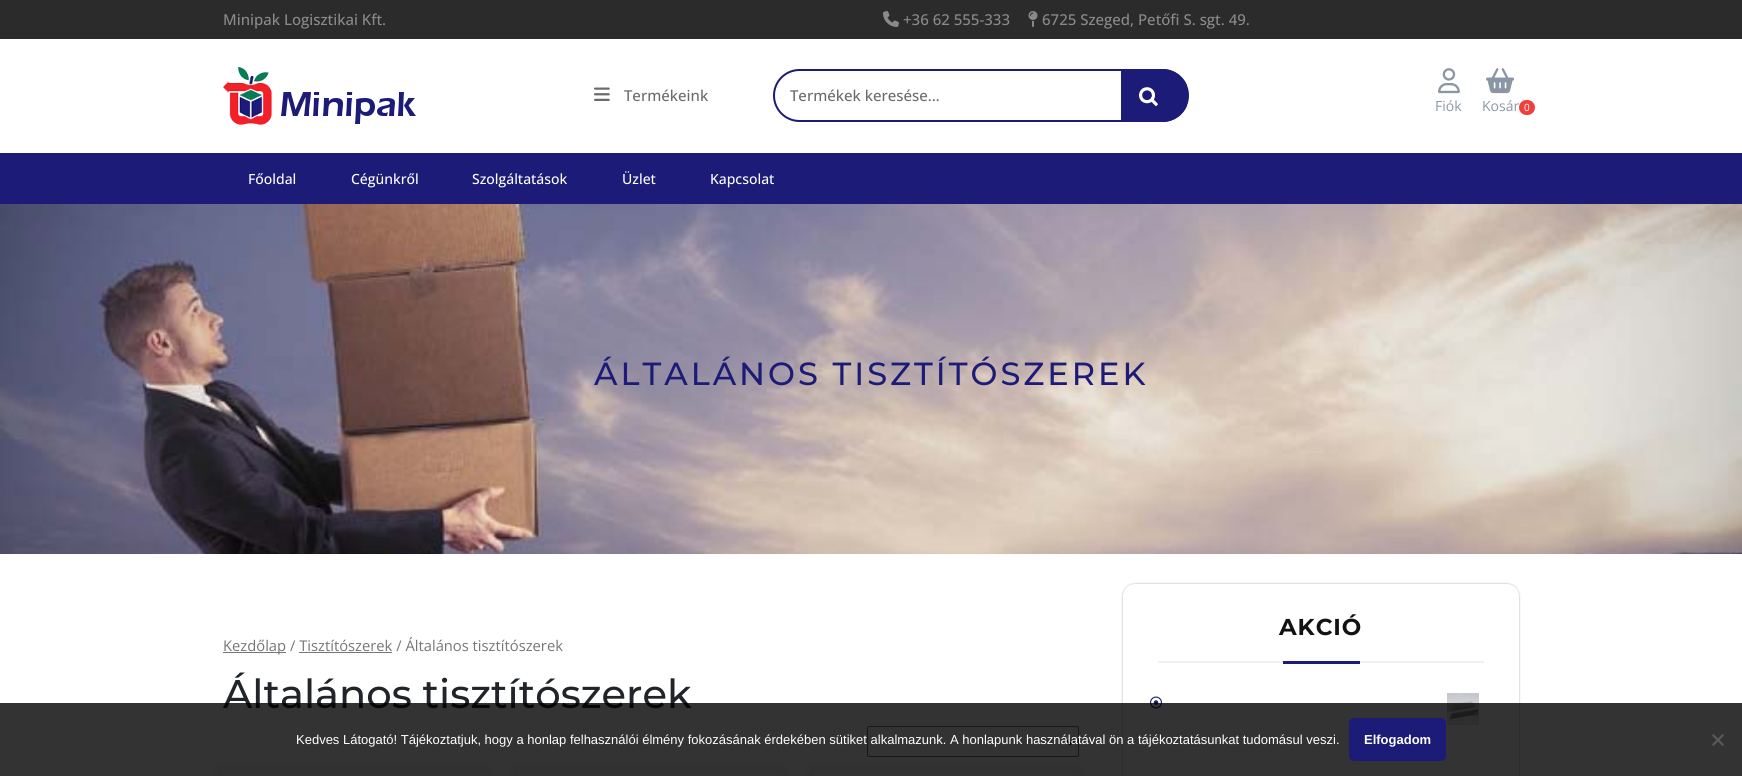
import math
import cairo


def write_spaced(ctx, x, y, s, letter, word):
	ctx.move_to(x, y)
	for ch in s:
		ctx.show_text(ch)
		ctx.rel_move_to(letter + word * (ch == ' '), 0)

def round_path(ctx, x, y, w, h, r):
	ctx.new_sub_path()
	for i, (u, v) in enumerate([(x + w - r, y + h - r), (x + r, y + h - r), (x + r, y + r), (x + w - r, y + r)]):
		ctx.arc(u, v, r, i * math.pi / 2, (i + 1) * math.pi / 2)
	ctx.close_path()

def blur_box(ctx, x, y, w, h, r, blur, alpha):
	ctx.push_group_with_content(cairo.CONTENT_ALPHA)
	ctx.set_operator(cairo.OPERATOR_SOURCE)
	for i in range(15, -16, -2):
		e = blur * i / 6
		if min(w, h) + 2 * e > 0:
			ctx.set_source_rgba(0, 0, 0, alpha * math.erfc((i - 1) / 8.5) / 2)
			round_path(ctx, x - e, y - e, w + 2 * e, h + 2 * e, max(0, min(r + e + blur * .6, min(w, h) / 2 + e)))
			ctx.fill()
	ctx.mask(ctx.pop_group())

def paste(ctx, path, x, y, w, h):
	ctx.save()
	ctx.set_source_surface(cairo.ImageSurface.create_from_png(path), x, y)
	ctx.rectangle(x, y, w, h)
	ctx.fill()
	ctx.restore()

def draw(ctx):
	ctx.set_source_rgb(1, 1, 1)
	ctx.paint()
	ctx.set_source_rgb(0.169, 0.169, 0.169)
	ctx.rectangle(0, 0, 1742, 39)
	ctx.fill()
	ctx.select_font_face('Open Sans Medium')
	ctx.set_font_size(15)
	ctx.set_source_rgb(0.537, 0.541, 0.545)
	ctx.move_to(223, 25)
	ctx.show_text('Minipak Logisztikai Kft.')
	paste(ctx, 'media/1.png', 883, 11, 16, 16)
	ctx.move_to(903, 25)
	ctx.show_text('+36 62 555-333')
	paste(ctx, 'media/2.png', 1028, 11, 10, 16)
	ctx.move_to(1042, 25)
	ctx.show_text('6725 Szeged, Petőfi S. sgt. 49.')
	paste(ctx, 'media/3.png', 223, 67, 193, 58)
	paste(ctx, 'media/4.png', 594, 87, 16, 14)
	ctx.set_source_rgb(0.42, 0.42, 0.42)
	ctx.move_to(624, 101)
	ctx.show_text('Termékeink')
	ctx.save()
	round_path(ctx, 773, 69, 416, 53, 26.5)
	ctx.clip()
	ctx.set_source_rgb(0.11, 0.106, 0.471)
	ctx.rectangle(1121, 69, 66, 53)
	ctx.fill()
	ctx.restore()
	round_path(ctx, 774, 70, 414, 51, 25.5)
	ctx.set_source_rgb(0.11, 0.106, 0.471)
	ctx.stroke()
	ctx.set_source_rgb(0.42, 0.42, 0.42)
	ctx.move_to(790, 101)
	ctx.show_text('Termékek keresése…')
	paste(ctx, 'media/5.png', 1139, 87, 19, 19)
	paste(ctx, 'media/6.png', 1438, 68, 22, 26)
	ctx.select_font_face('Open Sans')
	ctx.set_font_size(14)
	ctx.set_source_rgb(0.545, 0.588, 0.647)
	ctx.move_to(1435, 111)
	ctx.show_text('Fiók')
	paste(ctx, 'media/7.png', 1486, 68, 29, 26)
	ctx.move_to(1482, 111)
	ctx.show_text('Kosár')
	ctx.set_source_rgb(0.933, 0.251, 0.239)
	round_path(ctx, 1519, 100, 16, 15, 7.5)
	ctx.fill()
	ctx.set_font_size(10)
	ctx.set_source_rgb(1, 1, 1)
	ctx.move_to(1524, 111)
	ctx.show_text('0')
	ctx.set_source_rgb(0.11, 0.106, 0.471)
	ctx.rectangle(0, 153, 1742, 51)
	ctx.fill()
	ctx.select_font_face('Open Sans Medium')
	ctx.set_font_size(14)
	ctx.set_source_rgb(1, 1, 1)
	for x, y, s in [
		(248, 184, 'Főoldal'),
		(351, 184, 'Cégünkről'),
		(472, 184, 'Szolgáltatások'),
		(622, 184, 'Üzlet'),
		(710, 184, 'Kapcsolat'),
	]:
		ctx.move_to(x, y)
		ctx.show_text(s)
	paste(ctx, 'media/8.png', 0, 204, 1742, 350)
	ctx.select_font_face('Montserrat Medium')
	ctx.set_font_size(32)
	ctx.set_source_rgb(0.11, 0.106, 0.467)
	write_spaced(ctx, 594, 385, 'ÁLTALÁNOS TISZTÍTÓSZEREK', 3, 0)
	ctx.set_source_rgb(0.667, 0.667, 0.667)
	blur_box(ctx, 1123, 584, 396, 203, 12, 1, 1)
	ctx.set_source_rgb(1, 1, 1)
	round_path(ctx, 1123, 584, 396, 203, 12)
	ctx.fill()
	ctx.set_source_rgb(0.945, 0.945, 0.945)
	ctx.rectangle(1158, 661, 326, 2)
	ctx.fill()
	ctx.select_font_face('Montserrat', cairo.FONT_SLANT_NORMAL, cairo.FONT_WEIGHT_BOLD)
	ctx.set_font_size(23)
	ctx.set_source_rgb(0.071, 0.071, 0.071)
	write_spaced(ctx, 1279, 635, 'AKCIÓ', 1, 0)
	ctx.set_source_rgb(0.11, 0.106, 0.471)
	ctx.rectangle(1283, 661, 77, 3)
	ctx.fill()
	paste(ctx, 'media/9.png', 1150, 696, 12, 13)
	paste(ctx, 'media/10.png', 1447, 693, 32, 32)
	ctx.set_source_rgb(0.463, 0.463, 0.463)
	ctx.rectangle(223, 652, 63, 1)
	ctx.fill()
	ctx.select_font_face('Open Sans')
	ctx.set_font_size(14.75)
	ctx.move_to(223, 651)
	ctx.show_text('Kezdőlap / Tisztítószerek / Általános tisztítószerek')
	ctx.rectangle(299, 652, 93, 1)
	ctx.fill()
	ctx.select_font_face('Montserrat Medium')
	ctx.set_font_size(40)
	ctx.set_source_rgb(0.129, 0.145, 0.161)
	ctx.move_to(223, 708)
	ctx.show_text('Általános tisztítószerek')
	round_path(ctx, 867.5, 726.5, 211, 30, 1.5)
	ctx.set_source_rgb(0.463, 0.463, 0.463)
	ctx.set_line_width(1)
	ctx.stroke()
	ctx.new_path()
	ctx.move_to(1066, 740)
	ctx.line_to(1070, 744)
	ctx.line_to(1074, 740)
	ctx.set_source_rgb(0, 0, 0)
	ctx.set_line_width(2)
	ctx.stroke()
	ctx.save()
	ctx.set_fill_rule(cairo.FILL_RULE_EVEN_ODD)
	ctx.new_path()
	ctx.move_to(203, 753)
	ctx.line_to(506, 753)
	ctx.line_to(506, 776)
	ctx.line_to(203, 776)
	ctx.close_path()
	ctx.move_to(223, 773)
	ctx.line_to(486, 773)
	ctx.line_to(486, 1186)
	ctx.line_to(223, 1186)
	ctx.close_path()
	ctx.clip()
	ctx.set_source_rgb(0.937, 0.937, 0.937)
	blur_box(ctx, 219, 769, 271, 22, 0, 5, 1)
	ctx.restore()
	ctx.save()
	ctx.set_fill_rule(cairo.FILL_RULE_EVEN_ODD)
	ctx.new_path()
	ctx.move_to(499, 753)
	ctx.line_to(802, 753)
	ctx.line_to(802, 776)
	ctx.line_to(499, 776)
	ctx.close_path()
	ctx.move_to(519, 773)
	ctx.line_to(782, 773)
	ctx.line_to(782, 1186)
	ctx.line_to(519, 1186)
	ctx.close_path()
	ctx.clip()
	ctx.set_source_rgb(0.937, 0.937, 0.937)
	blur_box(ctx, 515, 769, 271, 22, 0, 5, 1)
	ctx.restore()
	ctx.save()
	ctx.set_fill_rule(cairo.FILL_RULE_EVEN_ODD)
	ctx.new_path()
	ctx.move_to(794, 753)
	ctx.line_to(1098, 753)
	ctx.line_to(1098, 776)
	ctx.line_to(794, 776)
	ctx.close_path()
	ctx.move_to(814, 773)
	ctx.line_to(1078, 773)
	ctx.line_to(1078, 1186)
	ctx.line_to(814, 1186)
	ctx.close_path()
	ctx.clip()
	ctx.set_source_rgb(0.937, 0.937, 0.937)
	blur_box(ctx, 810, 769, 272, 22, 0, 5, 1)
	ctx.restore()
	ctx.set_source_rgba(0, 0, 0, 0.8)
	ctx.rectangle(0, 703, 1742, 73)
	ctx.fill()
	ctx.select_font_face('Liberation Sans')
	ctx.set_font_size(13)
	ctx.set_source_rgb(1, 1, 1)
	ctx.move_to(296, 744)
	ctx.show_text('Kedves Látogató! Tájékoztatjuk, hogy a honlap felhasználói élmény fokozásának érdekében sütiket alkalmazunk. A honlapunk használatával ön a tájékoztatásunkat tudomásul veszi.')
	ctx.set_source_rgb(0.11, 0.106, 0.471)
	round_path(ctx, 1349, 718, 97, 43, 5)
	ctx.fill()
	ctx.select_font_face('Liberation Sans', cairo.FONT_SLANT_NORMAL, cairo.FONT_WEIGHT_BOLD)
	ctx.set_source_rgb(1, 1, 1)
	ctx.move_to(1364, 744)
	ctx.show_text('Elfogadom')
	ctx.set_source_rgb(0.353, 0.353, 0.353)
	ctx.new_path()
	ctx.move_to(1722.5, 734)
	ctx.line_to(1724, 735.5)
	ctx.line_to(1713.5, 746)
	ctx.line_to(1712, 744.5)
	ctx.close_path()
	ctx.fill()
	ctx.new_path()
	ctx.move_to(1712, 735.5)
	ctx.line_to(1713.5, 734)
	ctx.line_to(1724, 744.5)
	ctx.line_to(1722.5, 746)
	ctx.close_path()
	ctx.fill()


surface = cairo.ImageSurface(cairo.FORMAT_RGB24, 1742, 776)
ctx = cairo.Context(surface)
options = cairo.FontOptions()
options.set_hint_metrics(cairo.HINT_METRICS_OFF)
options.set_hint_style(cairo.HINT_STYLE_NONE)
ctx.set_font_options(options)
ctx.set_miter_limit(4)
draw(ctx)
surface.write_to_png('image.png')
